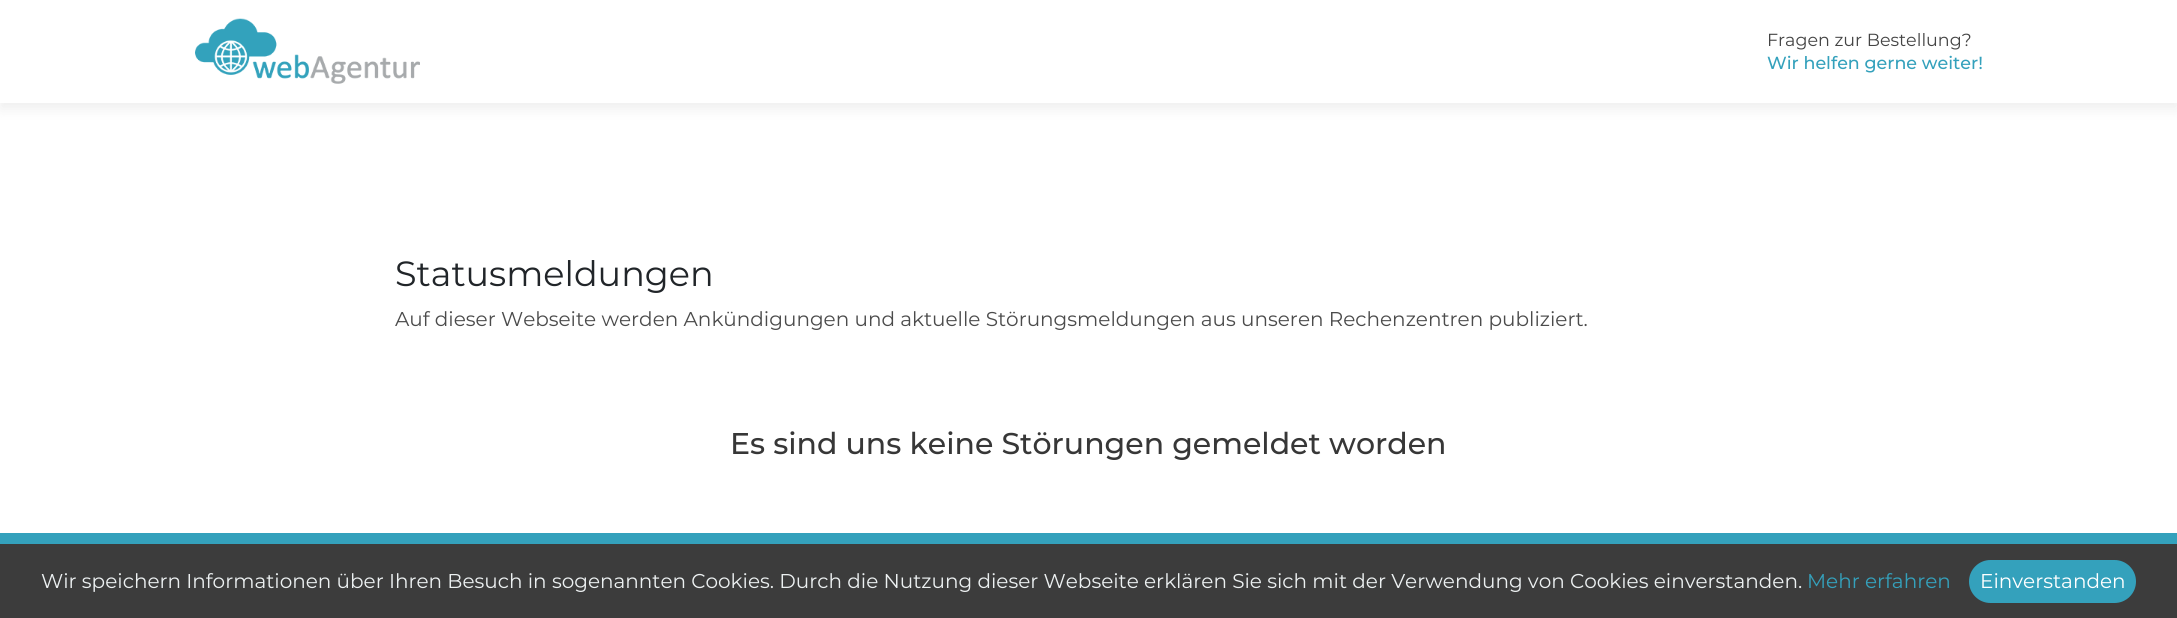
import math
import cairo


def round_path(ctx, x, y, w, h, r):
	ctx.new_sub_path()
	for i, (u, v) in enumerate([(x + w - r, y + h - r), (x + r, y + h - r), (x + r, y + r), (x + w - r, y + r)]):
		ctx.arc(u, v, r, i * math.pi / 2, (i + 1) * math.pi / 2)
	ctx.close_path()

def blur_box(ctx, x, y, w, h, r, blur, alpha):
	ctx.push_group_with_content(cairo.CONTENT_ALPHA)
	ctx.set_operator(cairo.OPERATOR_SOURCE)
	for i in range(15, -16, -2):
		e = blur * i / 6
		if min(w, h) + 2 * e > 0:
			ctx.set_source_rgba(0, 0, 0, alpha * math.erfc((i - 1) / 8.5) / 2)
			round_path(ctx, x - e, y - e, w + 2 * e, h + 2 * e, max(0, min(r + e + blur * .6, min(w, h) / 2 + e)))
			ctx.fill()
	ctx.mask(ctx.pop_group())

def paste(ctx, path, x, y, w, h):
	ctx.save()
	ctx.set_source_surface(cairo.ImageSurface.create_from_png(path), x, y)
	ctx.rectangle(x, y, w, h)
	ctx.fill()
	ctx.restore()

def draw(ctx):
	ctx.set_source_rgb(1, 1, 1)
	ctx.paint()
	ctx.set_source_rgb(0, 0, 0)
	blur_box(ctx, 0, 6, 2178, 103, 0, 7.5, 0.07)
	ctx.set_source_rgb(1, 1, 1)
	ctx.rectangle(0, 0, 2177, 103)
	ctx.fill()
	paste(ctx, 'media/1.png', 195, 18, 225, 66)
	ctx.select_font_face('Montserrat')
	ctx.set_font_size(17.5)
	ctx.set_source_rgb(0.267, 0.267, 0.267)
	ctx.move_to(1767, 46)
	ctx.show_text('Fragen zur Bestellung?')
	ctx.select_font_face('Montserrat Medium')
	ctx.set_source_rgb(0.204, 0.631, 0.737)
	ctx.move_to(1767, 69)
	ctx.show_text('Wir helfen gerne weiter!')
	ctx.select_font_face('Montserrat')
	ctx.set_font_size(35)
	ctx.set_source_rgb(0.129, 0.145, 0.161)
	ctx.move_to(395, 286)
	ctx.show_text('Statusmeldungen')
	ctx.set_font_size(20)
	ctx.set_source_rgb(0.294, 0.294, 0.294)
	ctx.move_to(395, 326)
	ctx.show_text('Auf dieser Webseite werden Ankündigungen und aktuelle Störungsmeldungen aus unseren Rechenzentren publiziert.')
	ctx.select_font_face('Montserrat Medium')
	ctx.set_font_size(30)
	ctx.set_source_rgb(0.216, 0.216, 0.216)
	ctx.move_to(730, 454)
	ctx.show_text('Es sind uns keine Störungen gemeldet worden')
	ctx.set_source_rgb(0.204, 0.631, 0.737)
	ctx.rectangle(0, 533, 2177, 11)
	ctx.fill()
	ctx.set_source_rgb(0.235, 0.235, 0.235)
	ctx.rectangle(0, 544, 2177, 74)
	ctx.fill()
	ctx.select_font_face('Montserrat')
	ctx.set_font_size(20)
	ctx.set_source_rgb(0.925, 0.941, 0.945)
	ctx.move_to(41, 588)
	ctx.show_text('Wir speichern Informationen über Ihren Besuch in sogenannten Cookies. Durch die Nutzung dieser Webseite erklären Sie sich mit der Verwendung von Cookies einverstanden.')
	ctx.set_source_rgb(0.204, 0.631, 0.737)
	ctx.move_to(1807, 588)
	ctx.show_text('Mehr erfahren')
	round_path(ctx, 1969, 560, 167, 43, 21.5)
	ctx.fill()
	ctx.set_source_rgb(1, 1, 1)
	ctx.move_to(1980, 588)
	ctx.show_text('Einverstanden')


surface = cairo.ImageSurface(cairo.FORMAT_RGB24, 2177, 618)
ctx = cairo.Context(surface)
options = cairo.FontOptions()
options.set_hint_metrics(cairo.HINT_METRICS_OFF)
options.set_hint_style(cairo.HINT_STYLE_NONE)
ctx.set_font_options(options)
ctx.set_miter_limit(4)
draw(ctx)
surface.write_to_png('image.png')
